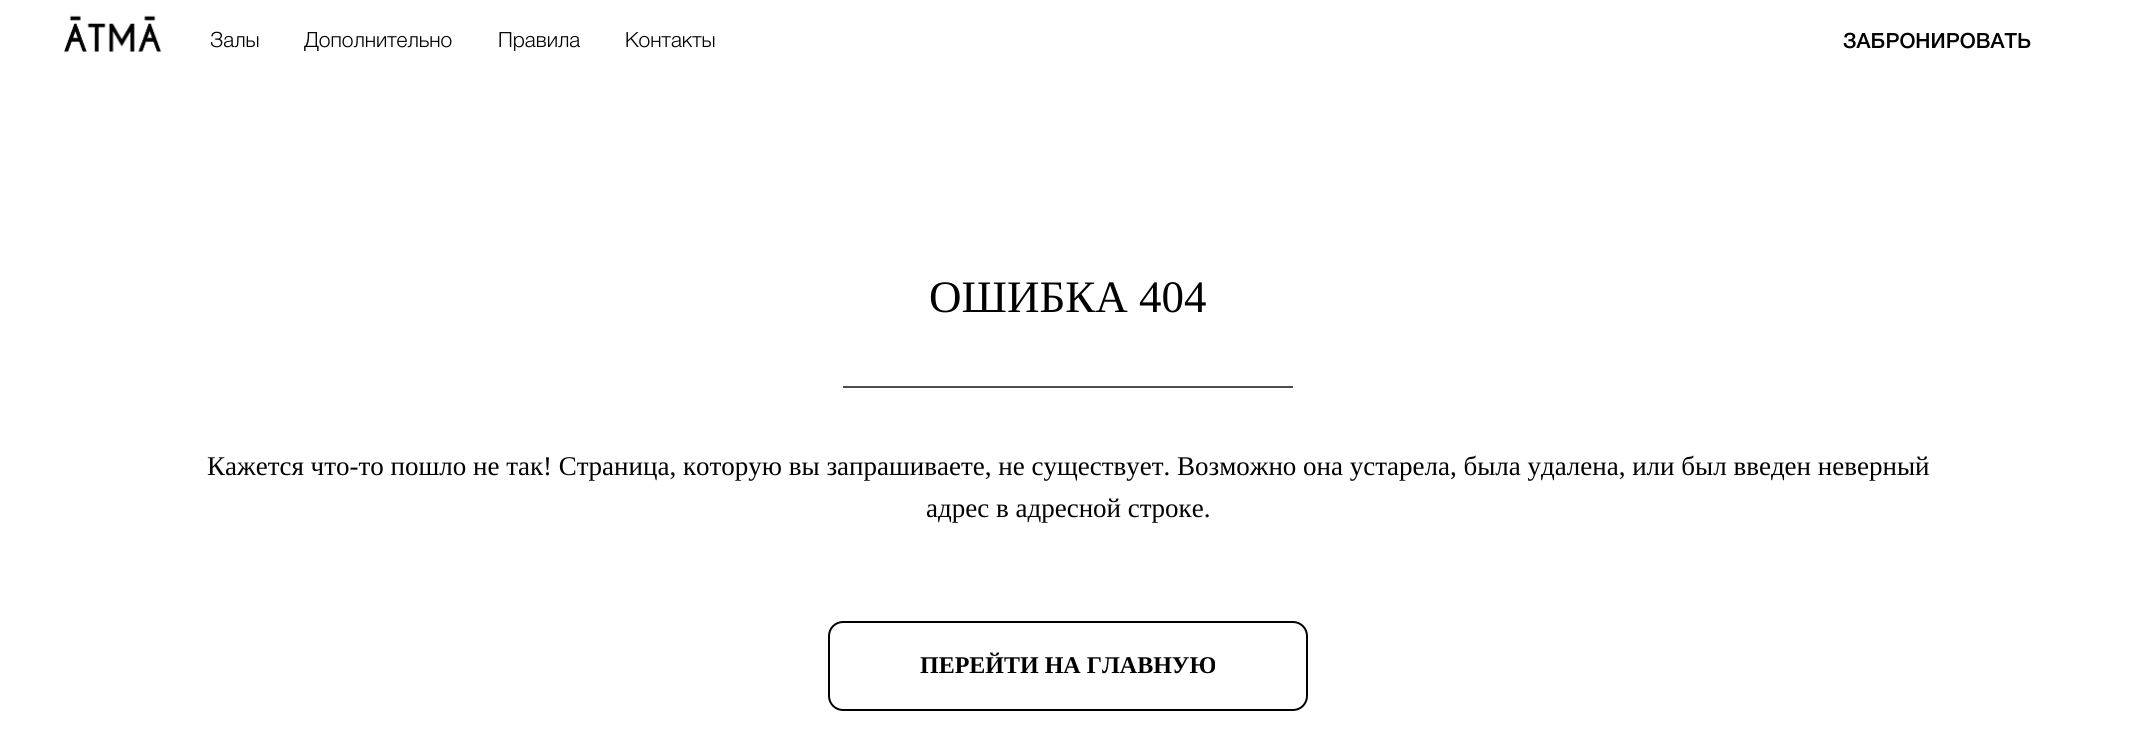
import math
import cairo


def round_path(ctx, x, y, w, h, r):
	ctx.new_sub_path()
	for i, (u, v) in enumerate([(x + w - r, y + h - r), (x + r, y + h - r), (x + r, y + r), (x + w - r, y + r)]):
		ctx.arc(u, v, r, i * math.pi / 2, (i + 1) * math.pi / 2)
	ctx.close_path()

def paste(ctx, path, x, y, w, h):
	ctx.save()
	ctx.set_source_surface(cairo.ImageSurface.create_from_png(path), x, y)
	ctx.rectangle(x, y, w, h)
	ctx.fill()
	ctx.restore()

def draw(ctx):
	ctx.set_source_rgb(1, 1, 1)
	ctx.paint()
	paste(ctx, 'media/1.png', 64, 15, 98, 37)
	ctx.select_font_face('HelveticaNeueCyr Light')
	ctx.set_font_size(21)
	ctx.set_source_rgb(0, 0, 0)
	for x, y, s in [
		(210, 47, 'Залы'),
		(304, 47, 'Дополнительно'),
		(498, 47, 'Правила'),
		(625, 47, 'Контакты'),
	]:
		ctx.move_to(x, y)
		ctx.show_text(s)
	ctx.select_font_face('HelveticaNeueCyr Medium')
	ctx.move_to(1843, 48)
	ctx.show_text('ЗАБРОНИРОВАТЬ')
	ctx.select_font_face('Liberation Serif')
	ctx.set_font_size(45)
	ctx.move_to(929, 312)
	ctx.show_text('ОШИБКА 404')
	ctx.set_source_rgb(0.302, 0.302, 0.302)
	ctx.rectangle(843, 386, 450, 2)
	ctx.fill()
	ctx.set_font_size(27)
	ctx.set_source_rgb(0, 0, 0)
	ctx.move_to(207, 475)
	ctx.show_text('Кажется что-то пошло не так! Страница, которую вы запрашиваете, не существует. Возможно она устарела, была удалена, или был введен неверный')
	ctx.move_to(926, 517)
	ctx.show_text('адрес в адресной строке.')
	round_path(ctx, 829, 622, 478, 88, 14)
	ctx.stroke()
	ctx.select_font_face('Liberation Serif', cairo.FONT_SLANT_NORMAL, cairo.FONT_WEIGHT_BOLD)
	ctx.set_font_size(24)
	ctx.move_to(920, 673)
	ctx.show_text('ПЕРЕЙТИ НА ГЛАВНУЮ')


surface = cairo.ImageSurface(cairo.FORMAT_RGB24, 2135, 747)
ctx = cairo.Context(surface)
options = cairo.FontOptions()
options.set_hint_metrics(cairo.HINT_METRICS_OFF)
options.set_hint_style(cairo.HINT_STYLE_NONE)
ctx.set_font_options(options)
ctx.set_miter_limit(4)
draw(ctx)
surface.write_to_png('image.png')
